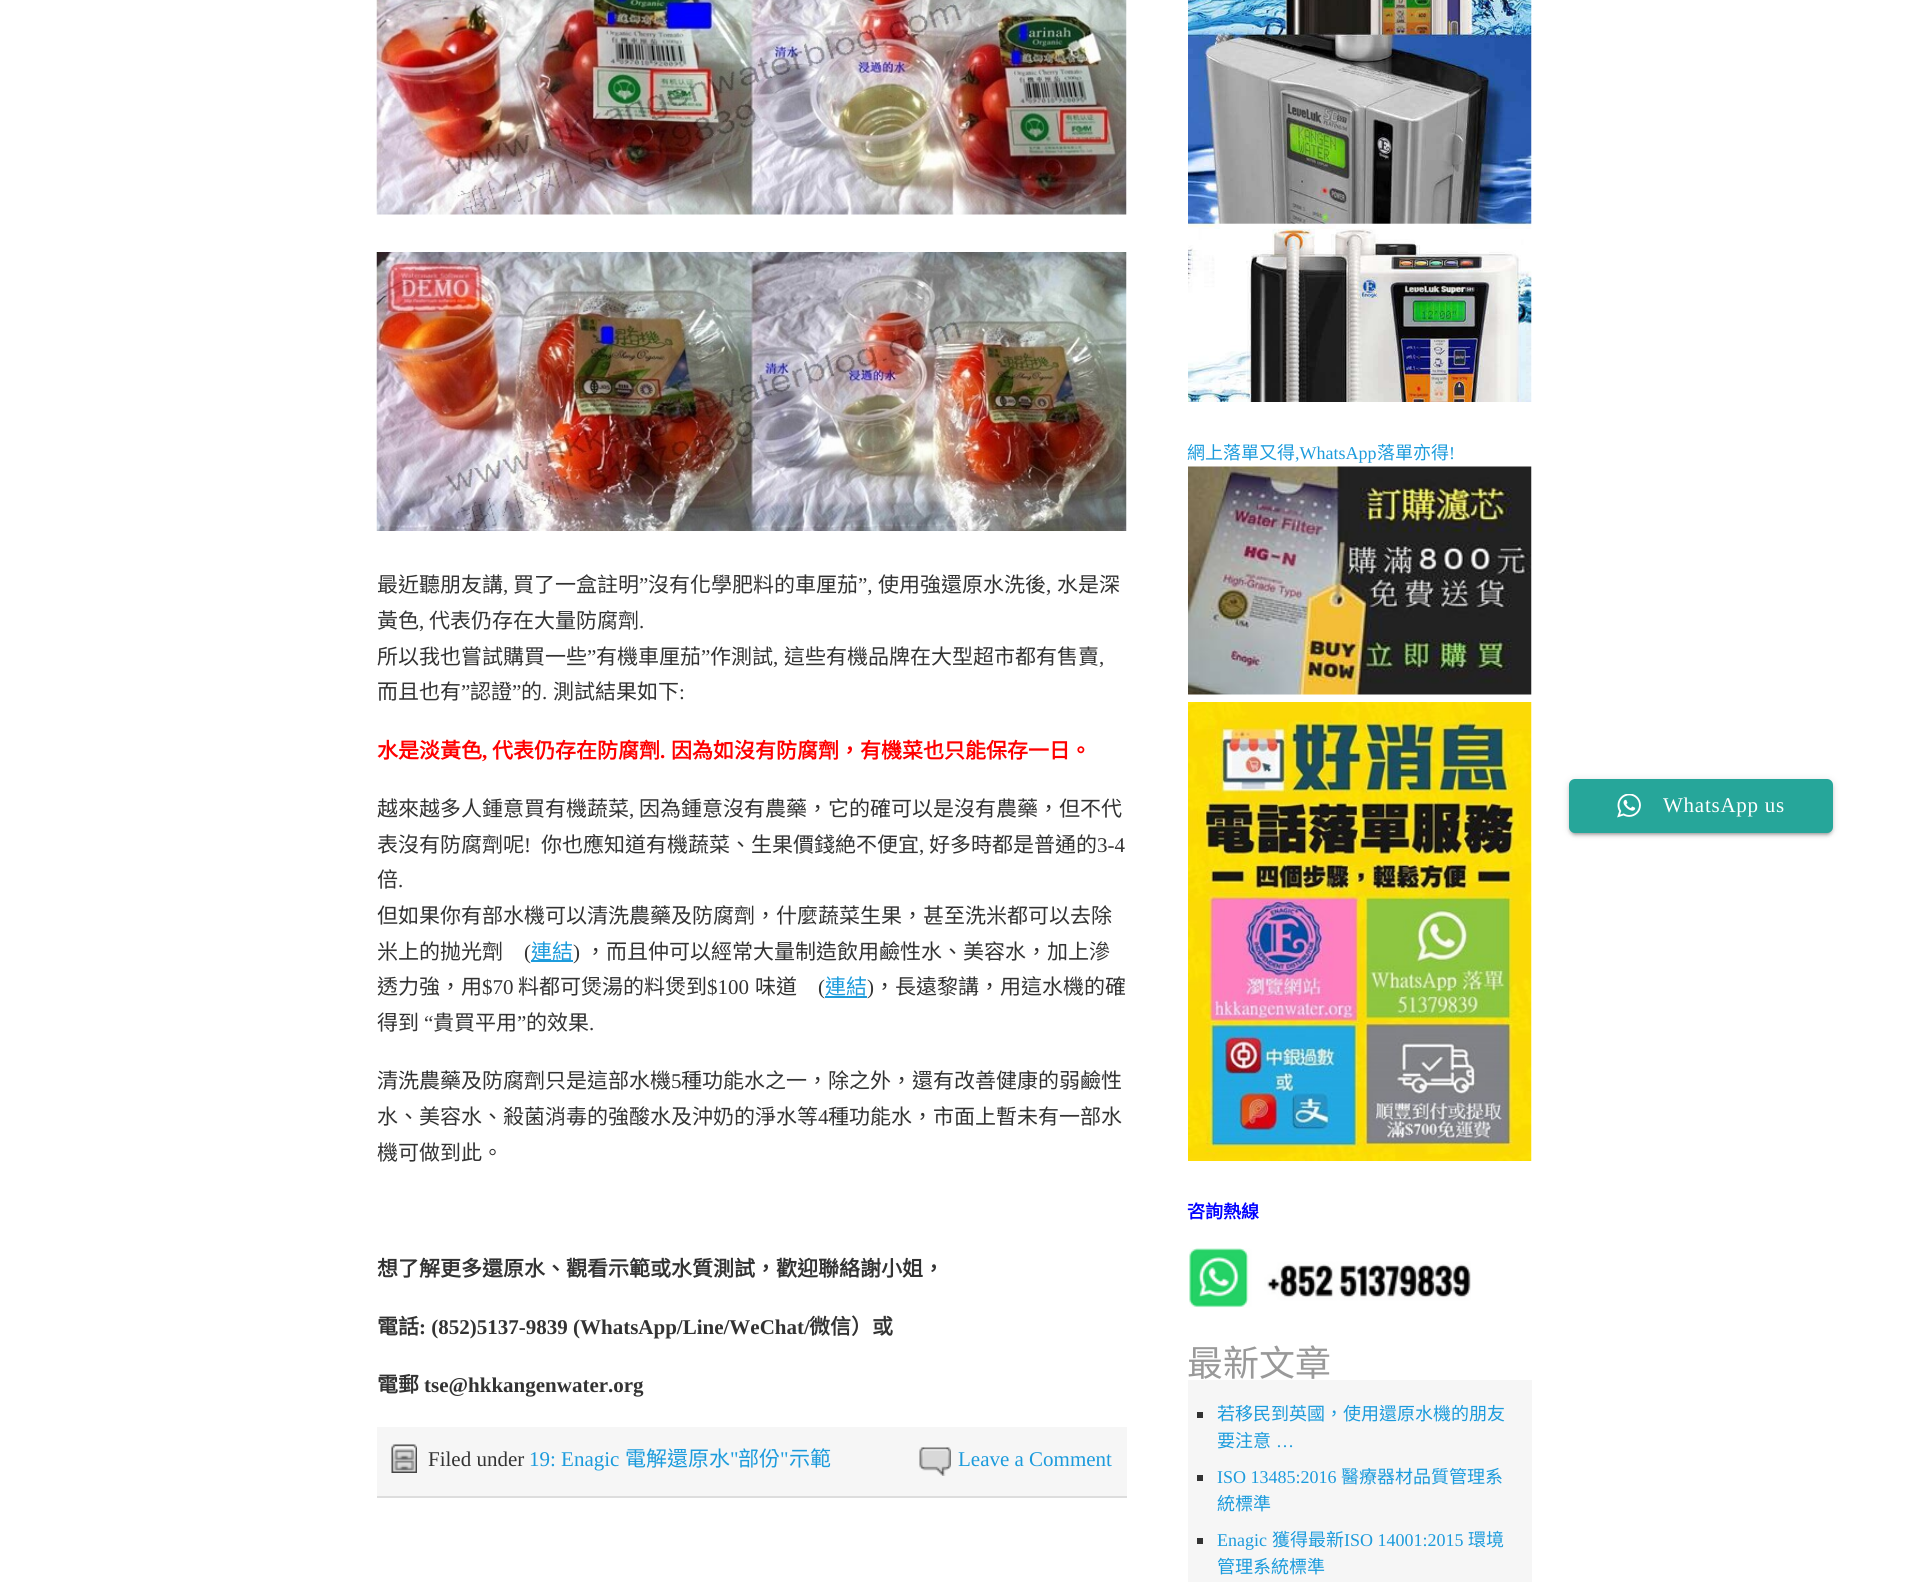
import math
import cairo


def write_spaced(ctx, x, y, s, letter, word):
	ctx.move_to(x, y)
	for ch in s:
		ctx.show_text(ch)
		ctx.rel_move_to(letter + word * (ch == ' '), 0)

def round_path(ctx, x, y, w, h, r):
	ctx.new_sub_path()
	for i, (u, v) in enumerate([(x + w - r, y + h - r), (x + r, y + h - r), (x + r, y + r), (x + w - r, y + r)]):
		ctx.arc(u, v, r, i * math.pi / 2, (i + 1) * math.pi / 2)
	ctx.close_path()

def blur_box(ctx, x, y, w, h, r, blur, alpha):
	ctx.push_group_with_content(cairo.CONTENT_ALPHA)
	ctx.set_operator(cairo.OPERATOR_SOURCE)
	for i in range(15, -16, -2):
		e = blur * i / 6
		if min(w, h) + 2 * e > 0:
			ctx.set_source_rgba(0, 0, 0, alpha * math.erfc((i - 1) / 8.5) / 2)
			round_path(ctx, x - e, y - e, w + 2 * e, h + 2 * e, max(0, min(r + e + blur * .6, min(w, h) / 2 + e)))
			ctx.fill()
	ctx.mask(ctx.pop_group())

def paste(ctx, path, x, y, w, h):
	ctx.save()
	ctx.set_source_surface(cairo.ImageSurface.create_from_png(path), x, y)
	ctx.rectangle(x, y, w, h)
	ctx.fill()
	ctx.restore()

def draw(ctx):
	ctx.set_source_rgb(1, 1, 1)
	ctx.paint()
	paste(ctx, 'media/1.png', 376, 0, 751, 215)
	paste(ctx, 'media/2.png', 376, 252, 751, 279)
	ctx.select_font_face('Noto Sans CJK TC')
	ctx.set_font_size(21)
	ctx.set_source_rgb(0.2, 0.2, 0.2)
	ctx.move_to(377, 592)
	ctx.show_text('最近聽朋友講')
	ctx.select_font_face('Liberation Serif')
	ctx.move_to(503, 592)
	ctx.show_text(',')
	ctx.select_font_face('Noto Sans CJK TC')
	ctx.move_to(513, 592)
	ctx.show_text('買了一盒註明')
	ctx.select_font_face('Liberation Serif')
	ctx.move_to(639, 592)
	ctx.show_text('”')
	ctx.select_font_face('Noto Sans CJK TC')
	ctx.move_to(648, 592)
	ctx.show_text('沒有化學肥料的車厘茄')
	ctx.select_font_face('Liberation Serif')
	ctx.move_to(858, 592)
	ctx.show_text('”,')
	ctx.select_font_face('Noto Sans CJK TC')
	ctx.move_to(878, 592)
	ctx.show_text('使用強還原水洗後')
	ctx.select_font_face('Liberation Serif')
	ctx.move_to(1046, 592)
	ctx.show_text(',')
	ctx.select_font_face('Noto Sans CJK TC')
	ctx.move_to(1057, 592)
	ctx.show_text('水是深')
	ctx.move_to(377, 628)
	ctx.show_text('黃色')
	ctx.select_font_face('Liberation Serif')
	ctx.move_to(419, 628)
	ctx.show_text(',')
	ctx.select_font_face('Noto Sans CJK TC')
	ctx.move_to(429, 628)
	ctx.show_text('代表仍存在大量防腐劑')
	ctx.select_font_face('Liberation Serif')
	ctx.move_to(639, 628)
	ctx.show_text('.')
	ctx.select_font_face('Noto Sans CJK TC')
	ctx.move_to(377, 664)
	ctx.show_text('所以我也嘗試購買一些')
	ctx.select_font_face('Liberation Serif')
	ctx.move_to(587, 664)
	ctx.show_text('”')
	ctx.select_font_face('Noto Sans CJK TC')
	ctx.move_to(596, 664)
	ctx.show_text('有機車厘茄')
	ctx.select_font_face('Liberation Serif')
	ctx.move_to(701, 664)
	ctx.show_text('”')
	ctx.select_font_face('Noto Sans CJK TC')
	ctx.move_to(710, 664)
	ctx.show_text('作測試')
	ctx.move_to(784, 664)
	ctx.show_text('這些有機品牌在大型超市都有售賣')
	ctx.select_font_face('Liberation Serif')
	ctx.move_to(773, 664)
	ctx.show_text(',')
	ctx.move_to(1099, 664)
	ctx.show_text(',')
	ctx.select_font_face('Noto Sans CJK TC')
	ctx.move_to(377, 699)
	ctx.show_text('而且也有')
	ctx.select_font_face('Liberation Serif')
	ctx.move_to(461, 699)
	ctx.show_text('”')
	ctx.select_font_face('Noto Sans CJK TC')
	ctx.move_to(470, 699)
	ctx.show_text('認證')
	ctx.select_font_face('Liberation Serif')
	ctx.move_to(512, 699)
	ctx.show_text('”')
	ctx.select_font_face('Noto Sans CJK TC')
	ctx.move_to(521, 699)
	ctx.show_text('的')
	ctx.move_to(553, 699)
	ctx.show_text('測試結果如下')
	ctx.select_font_face('Liberation Serif')
	ctx.move_to(542, 699)
	ctx.show_text('.')
	ctx.move_to(679, 699)
	ctx.show_text(':')
	ctx.select_font_face('Noto Sans CJK TC', cairo.FONT_SLANT_NORMAL, cairo.FONT_WEIGHT_BOLD)
	ctx.set_source_rgb(1, 0, 0)
	ctx.move_to(377, 758)
	ctx.show_text('水是淡黃色')
	ctx.select_font_face('Liberation Serif', cairo.FONT_SLANT_NORMAL, cairo.FONT_WEIGHT_BOLD)
	ctx.move_to(482, 758)
	ctx.show_text(',')
	ctx.select_font_face('Noto Sans CJK TC', cairo.FONT_SLANT_NORMAL, cairo.FONT_WEIGHT_BOLD)
	ctx.move_to(492, 758)
	ctx.show_text('代表仍存在防腐劑')
	ctx.select_font_face('Liberation Serif', cairo.FONT_SLANT_NORMAL, cairo.FONT_WEIGHT_BOLD)
	ctx.move_to(660, 758)
	ctx.show_text('.')
	ctx.select_font_face('Noto Sans CJK TC', cairo.FONT_SLANT_NORMAL, cairo.FONT_WEIGHT_BOLD)
	ctx.move_to(671, 758)
	ctx.show_text('因為如沒有防腐劑，有機菜也只能保存一日。')
	ctx.select_font_face('Noto Sans CJK TC')
	ctx.set_source_rgb(0.2, 0.2, 0.2)
	ctx.move_to(377, 816)
	ctx.show_text('越來越多人鍾意買有機蔬菜')
	ctx.select_font_face('Liberation Serif')
	ctx.move_to(629, 816)
	ctx.show_text(',')
	ctx.select_font_face('Noto Sans CJK TC')
	ctx.move_to(639, 816)
	ctx.show_text('因為鍾意沒有農藥，它的確可以是沒有農藥，但不代')
	ctx.move_to(377, 852)
	ctx.show_text('表沒有防腐劑呢')
	ctx.select_font_face('Liberation Serif')
	ctx.move_to(524, 852)
	ctx.show_text('!')
	ctx.select_font_face('Noto Sans CJK TC')
	ctx.move_to(541, 852)
	ctx.show_text('你也應知道有機蔬菜、生果價錢絶不便宜')
	ctx.select_font_face('Liberation Serif')
	ctx.move_to(919, 852)
	ctx.show_text(',')
	ctx.select_font_face('Noto Sans CJK TC')
	ctx.move_to(929, 852)
	ctx.show_text('好多時都是普通的')
	ctx.select_font_face('Liberation Serif')
	ctx.move_to(1097, 852)
	ctx.show_text('3-4')
	ctx.select_font_face('Noto Sans CJK TC')
	ctx.move_to(377, 887)
	ctx.show_text('倍')
	ctx.select_font_face('Liberation Serif')
	ctx.move_to(398, 887)
	ctx.show_text('.')
	ctx.select_font_face('Noto Sans CJK TC')
	ctx.move_to(377, 923)
	ctx.show_text('但如果你有部水機可以清洗農藥及防腐劑，什麼蔬菜生果，甚至洗米都可以去除')
	ctx.move_to(377, 959)
	ctx.show_text('米上的抛光劑')
	ctx.select_font_face('Liberation Serif')
	ctx.move_to(524, 959)
	ctx.show_text('(')
	ctx.set_source_rgb(0.11, 0.608, 0.863)
	ctx.rectangle(531, 960, 42, 2)
	ctx.fill()
	ctx.select_font_face('Noto Sans CJK TC')
	ctx.move_to(531, 959)
	ctx.show_text('連結')
	ctx.select_font_face('Liberation Serif')
	ctx.set_source_rgb(0.2, 0.2, 0.2)
	ctx.move_to(573, 959)
	ctx.show_text(')')
	ctx.select_font_face('Noto Sans CJK TC')
	ctx.move_to(585, 959)
	ctx.show_text('，而且仲可以經常大量制造飲用鹼性水、美容水，加上滲')
	ctx.move_to(377, 994)
	ctx.show_text('透力強，用')
	ctx.select_font_face('Liberation Serif')
	ctx.move_to(482, 994)
	ctx.show_text('$70')
	ctx.select_font_face('Noto Sans CJK TC')
	ctx.move_to(518, 994)
	ctx.show_text('料都可煲湯的料煲到')
	ctx.select_font_face('Liberation Serif')
	ctx.move_to(707, 994)
	ctx.show_text('$100')
	ctx.select_font_face('Noto Sans CJK TC')
	ctx.move_to(755, 994)
	ctx.show_text('味道')
	ctx.select_font_face('Liberation Serif')
	ctx.move_to(818, 994)
	ctx.show_text('(')
	ctx.select_font_face('Noto Sans CJK TC')
	ctx.set_source_rgb(0.11, 0.608, 0.863)
	ctx.move_to(825, 994)
	ctx.show_text('連結')
	ctx.rectangle(825, 996, 42, 2)
	ctx.fill()
	ctx.select_font_face('Liberation Serif')
	ctx.set_source_rgb(0.2, 0.2, 0.2)
	ctx.move_to(867, 994)
	ctx.show_text(')')
	ctx.select_font_face('Noto Sans CJK TC')
	ctx.move_to(874, 994)
	ctx.show_text('，長遠黎講，用這水機的確')
	ctx.move_to(377, 1030)
	ctx.show_text('得到')
	ctx.select_font_face('Liberation Serif')
	ctx.move_to(424, 1030)
	ctx.show_text('“')
	ctx.select_font_face('Noto Sans CJK TC')
	ctx.move_to(433, 1030)
	ctx.show_text('貴買平用')
	ctx.select_font_face('Liberation Serif')
	ctx.move_to(517, 1030)
	ctx.show_text('”')
	ctx.select_font_face('Noto Sans CJK TC')
	ctx.move_to(526, 1030)
	ctx.show_text('的效果')
	ctx.select_font_face('Liberation Serif')
	ctx.move_to(589, 1030)
	ctx.show_text('.')
	ctx.select_font_face('Noto Sans CJK TC')
	ctx.move_to(377, 1088)
	ctx.show_text('清洗農藥及防腐劑只是這部水機')
	ctx.select_font_face('Liberation Serif')
	ctx.move_to(671, 1088)
	ctx.show_text('5')
	ctx.select_font_face('Noto Sans CJK TC')
	ctx.move_to(681, 1088)
	ctx.show_text('種功能水之一，除之外，還有改善健康的弱鹼性')
	ctx.move_to(377, 1124)
	ctx.show_text('水、美容水、殺菌消毒的強酸水及沖奶的淨水等')
	ctx.select_font_face('Liberation Serif')
	ctx.move_to(818, 1124)
	ctx.show_text('4')
	ctx.select_font_face('Noto Sans CJK TC')
	ctx.move_to(828, 1124)
	ctx.show_text('種功能水，市面上暫未有一部水')
	ctx.move_to(377, 1160)
	ctx.show_text('機可做到此。')
	ctx.select_font_face('Noto Sans CJK TC', cairo.FONT_SLANT_NORMAL, cairo.FONT_WEIGHT_BOLD)
	ctx.move_to(377, 1276)
	ctx.show_text('想了解更多還原水、觀看示範或水質測試，歡迎聯絡謝小姐，')
	ctx.move_to(377, 1334)
	ctx.show_text('電話')
	ctx.select_font_face('Liberation Serif', cairo.FONT_SLANT_NORMAL, cairo.FONT_WEIGHT_BOLD)
	ctx.move_to(419, 1334)
	ctx.show_text(': (852)5137-9839 (WhatsApp/Line/WeChat/')
	ctx.select_font_face('Noto Sans CJK TC', cairo.FONT_SLANT_NORMAL, cairo.FONT_WEIGHT_BOLD)
	ctx.move_to(809, 1334)
	ctx.show_text('微信）或')
	ctx.move_to(377, 1392)
	ctx.show_text('電郵')
	ctx.select_font_face('Liberation Serif', cairo.FONT_SLANT_NORMAL, cairo.FONT_WEIGHT_BOLD)
	ctx.move_to(424, 1392)
	ctx.show_text('tse@hkkangenwater.org')
	ctx.set_source_rgb(0.961, 0.961, 0.961)
	ctx.rectangle(377, 1427, 750, 69)
	ctx.fill()
	ctx.set_source_rgb(0.867, 0.867, 0.867)
	ctx.rectangle(377, 1496, 750, 2)
	ctx.fill()
	paste(ctx, 'media/3.png', 391, 1444, 26, 29)
	ctx.select_font_face('Liberation Serif')
	ctx.set_source_rgb(0.2, 0.2, 0.2)
	ctx.move_to(428, 1466)
	ctx.show_text('Filed under')
	ctx.set_source_rgb(0.11, 0.608, 0.863)
	ctx.move_to(529, 1466)
	ctx.show_text('19: Enagic')
	ctx.select_font_face('Noto Sans CJK TC')
	ctx.move_to(625, 1466)
	ctx.show_text('電解還原水')
	ctx.select_font_face('Liberation Serif')
	ctx.move_to(730, 1466)
	ctx.show_text('"')
	ctx.select_font_face('Noto Sans CJK TC')
	ctx.move_to(738, 1466)
	ctx.show_text('部份')
	ctx.select_font_face('Liberation Serif')
	ctx.move_to(780, 1466)
	ctx.show_text('"')
	ctx.select_font_face('Noto Sans CJK TC')
	ctx.move_to(789, 1466)
	ctx.show_text('示範')
	paste(ctx, 'media/4.png', 919, 1447, 32, 29)
	ctx.select_font_face('Liberation Serif')
	ctx.move_to(958, 1466)
	ctx.show_text('Leave a Comment')
	paste(ctx, 'media/5.png', 1188, 0, 344, 402)
	ctx.select_font_face('Noto Sans CJK TC')
	ctx.set_font_size(18)
	ctx.move_to(1187, 459)
	ctx.show_text('網上落單又得')
	ctx.select_font_face('Liberation Serif')
	ctx.move_to(1295, 459)
	ctx.show_text(',WhatsApp')
	ctx.select_font_face('Noto Sans CJK TC')
	ctx.move_to(1377, 459)
	ctx.show_text('落單亦得')
	ctx.select_font_face('Liberation Serif')
	ctx.move_to(1449, 459)
	ctx.show_text('!')
	paste(ctx, 'media/6.png', 1188, 466, 344, 229)
	paste(ctx, 'media/7.png', 1188, 702, 344, 459)
	ctx.select_font_face('Noto Sans CJK TC', cairo.FONT_SLANT_NORMAL, cairo.FONT_WEIGHT_BOLD)
	ctx.set_source_rgb(0, 0, 1)
	ctx.move_to(1187, 1218)
	ctx.show_text('咨詢熱線')
	paste(ctx, 'media/8.png', 1189, 1248, 282, 60)
	ctx.select_font_face('Noto Sans CJK TC')
	ctx.set_font_size(36)
	ctx.set_source_rgb(0.6, 0.6, 0.6)
	ctx.move_to(1187, 1376)
	ctx.show_text('最新文章')
	ctx.set_source_rgb(0.961, 0.961, 0.961)
	ctx.rectangle(1188, 1380, 344, 202)
	ctx.fill()
	ctx.set_source_rgb(0.2, 0.2, 0.2)
	ctx.rectangle(1197, 1412, 6, 6)
	ctx.fill()
	ctx.set_font_size(18)
	ctx.set_source_rgb(0.11, 0.608, 0.863)
	ctx.move_to(1217, 1420)
	ctx.show_text('若移民到英國，使用還原水機的朋友')
	ctx.move_to(1217, 1447)
	ctx.show_text('要注意')
	ctx.select_font_face('Liberation Serif')
	ctx.move_to(1276, 1447)
	ctx.show_text('…')
	ctx.set_source_rgb(0.2, 0.2, 0.2)
	ctx.rectangle(1197, 1475, 6, 6)
	ctx.fill()
	ctx.set_source_rgb(0.11, 0.608, 0.863)
	ctx.move_to(1217, 1483)
	ctx.show_text('ISO 13485:2016')
	ctx.select_font_face('Noto Sans CJK TC')
	ctx.move_to(1341, 1483)
	ctx.show_text('醫療器材品質管理系')
	ctx.move_to(1217, 1510)
	ctx.show_text('統標準')
	ctx.set_source_rgb(0.2, 0.2, 0.2)
	ctx.rectangle(1197, 1538, 6, 6)
	ctx.fill()
	ctx.select_font_face('Liberation Serif')
	ctx.set_source_rgb(0.11, 0.608, 0.863)
	ctx.move_to(1217, 1546)
	ctx.show_text('Enagic')
	ctx.select_font_face('Noto Sans CJK TC')
	ctx.move_to(1272, 1546)
	ctx.show_text('獲得最新')
	ctx.select_font_face('Liberation Serif')
	ctx.move_to(1344, 1546)
	ctx.show_text('ISO 14001:2015')
	ctx.select_font_face('Noto Sans CJK TC')
	ctx.move_to(1468, 1546)
	ctx.show_text('環境')
	ctx.move_to(1217, 1573)
	ctx.show_text('管理系統標準')
	ctx.set_source_rgb(0, 0, 0)
	blur_box(ctx, 1572, 786, 258, 48, 3, 1, 0.2)
	blur_box(ctx, 1569, 780, 264, 54, 6, 4, 0.12)
	blur_box(ctx, 1569, 782, 264, 54, 6, 1.5, 0.14)
	ctx.set_source_rgb(0.149, 0.651, 0.604)
	round_path(ctx, 1569, 779, 264, 54, 6)
	ctx.fill()
	paste(ctx, 'media/9.png', 1617, 794, 24, 24)
	ctx.select_font_face('Liberation Serif')
	ctx.set_font_size(21)
	ctx.set_source_rgb(1, 1, 1)
	write_spaced(ctx, 1663, 812, 'WhatsApp us', 0.75, 0)


surface = cairo.ImageSurface(cairo.FORMAT_RGB24, 1907, 1582)
ctx = cairo.Context(surface)
options = cairo.FontOptions()
options.set_hint_metrics(cairo.HINT_METRICS_OFF)
options.set_hint_style(cairo.HINT_STYLE_NONE)
ctx.set_font_options(options)
ctx.set_miter_limit(4)
draw(ctx)
surface.write_to_png('image.png')
